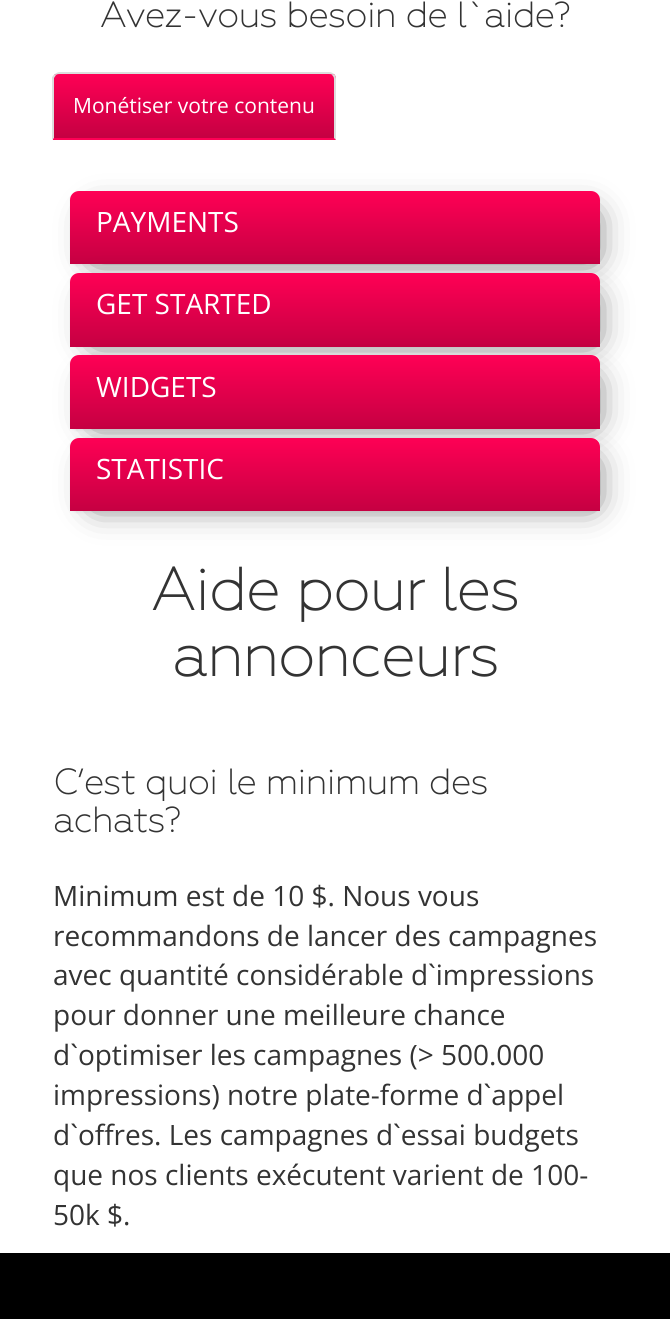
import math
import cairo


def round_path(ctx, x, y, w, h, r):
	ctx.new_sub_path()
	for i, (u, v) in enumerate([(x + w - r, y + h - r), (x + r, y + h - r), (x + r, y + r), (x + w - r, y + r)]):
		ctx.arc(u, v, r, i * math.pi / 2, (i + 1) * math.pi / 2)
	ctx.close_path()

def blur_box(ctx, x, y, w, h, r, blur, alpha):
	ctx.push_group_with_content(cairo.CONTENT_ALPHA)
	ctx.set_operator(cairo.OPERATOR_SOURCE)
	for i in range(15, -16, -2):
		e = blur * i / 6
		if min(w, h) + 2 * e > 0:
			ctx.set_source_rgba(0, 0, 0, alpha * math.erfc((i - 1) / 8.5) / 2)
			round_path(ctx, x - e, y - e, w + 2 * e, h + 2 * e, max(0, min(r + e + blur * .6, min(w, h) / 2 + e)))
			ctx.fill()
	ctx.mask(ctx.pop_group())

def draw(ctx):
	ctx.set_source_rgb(1, 1, 1)
	ctx.paint()
	ctx.select_font_face('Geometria', cairo.FONT_SLANT_NORMAL, cairo.FONT_WEIGHT_BOLD)
	ctx.set_font_size(35)
	ctx.set_source_rgb(0.2, 0.2, 0.2)
	ctx.move_to(100, 27)
	ctx.show_text('Avez-vous besoin de l`aide?')
	ctx.save()
	ctx.new_path()
	ctx.move_to(60, 72)
	ctx.line_to(329, 72)
	ctx.curve_to(333, 72, 336, 75, 336, 79)
	ctx.line_to(336, 140)
	ctx.line_to(53, 140)
	ctx.line_to(53, 79)
	ctx.curve_to(53, 75, 56, 72, 60, 72)
	ctx.close_path()
	ctx.clip()
	gradient = cairo.LinearGradient(194, 73, 194, 138)
	gradient.add_color_stop_rgba(0, 1, 0, 0.333, 1)
	gradient.add_color_stop_rgba(1, 0.773, 0, 0.259, 1)
	ctx.set_source(gradient)
	ctx.rectangle(53, 74, 283, 64)
	ctx.fill()
	ctx.restore()
	gradient = cairo.LinearGradient(194, 138, 194, 203)
	gradient.add_color_stop_rgba(0, 1, 0, 0.333, 1)
	gradient.add_color_stop_rgba(1, 0.773, 0, 0.259, 1)
	ctx.set_source(gradient)
	ctx.rectangle(53, 138, 283, 2)
	ctx.fill()
	ctx.set_source_rgb(0.867, 0.867, 0.867)
	ctx.new_path()
	ctx.move_to(60, 72)
	ctx.curve_to(58, 72, 56, 73, 55, 74)
	ctx.line_to(56, 75)
	ctx.curve_to(57, 74, 59, 74, 60, 74)
	ctx.line_to(329, 74)
	ctx.curve_to(330, 74, 332, 74, 332, 75)
	ctx.line_to(334, 74)
	ctx.curve_to(333, 73, 331, 72, 329, 72)
	ctx.close_path()
	ctx.fill()
	ctx.new_path()
	ctx.move_to(334, 74)
	ctx.curve_to(335, 75, 336, 77, 336, 79)
	ctx.line_to(336, 140)
	ctx.line_to(334, 138)
	ctx.line_to(334, 79)
	ctx.curve_to(334, 77, 333, 76, 332, 75)
	ctx.close_path()
	ctx.fill()
	ctx.new_path()
	ctx.move_to(52, 140)
	ctx.line_to(54, 138)
	ctx.line_to(54, 78)
	ctx.line_to(56, 75)
	ctx.line_to(55, 74)
	ctx.line_to(52, 77)
	ctx.close_path()
	ctx.fill()
	ctx.select_font_face('Open Sans')
	ctx.set_font_size(21)
	ctx.set_source_rgb(1, 1, 1)
	ctx.move_to(73, 113)
	ctx.show_text('Monétiser votre contenu')
	ctx.set_source_rgb(0, 0, 0)
	blur_box(ctx, 70, 193, 530, 73, 7, 1, 0.05)
	ctx.set_source_rgb(1, 1, 1)
	round_path(ctx, 70, 191, 530, 73, 7)
	ctx.fill()
	ctx.set_source_rgb(0, 0, 0)
	blur_box(ctx, 96, 217, 496, 39, 0, 17.5, 0.75)
	gradient = cairo.LinearGradient(335, 191, 335, 264)
	gradient.add_color_stop_rgba(0, 1, 0, 0.333, 1)
	gradient.add_color_stop_rgba(1, 0.773, 0, 0.259, 1)
	ctx.set_source(gradient)
	ctx.new_path()
	ctx.move_to(79, 191)
	ctx.line_to(591, 191)
	ctx.curve_to(596, 191, 600, 195, 600, 200)
	ctx.line_to(600, 264)
	ctx.line_to(70, 264)
	ctx.line_to(70, 200)
	ctx.curve_to(70, 195, 74, 191, 79, 191)
	ctx.close_path()
	ctx.fill()
	ctx.set_font_size(28)
	ctx.set_source_rgb(1, 1, 1)
	ctx.move_to(96, 232)
	ctx.show_text('PAYMENTS')
	ctx.set_source_rgb(0, 0, 0)
	blur_box(ctx, 70, 275, 530, 73, 7, 1, 0.05)
	ctx.set_source_rgb(1, 1, 1)
	round_path(ctx, 70, 273, 530, 74, 7)
	ctx.fill()
	ctx.set_source_rgb(0, 0, 0)
	blur_box(ctx, 96, 299, 496, 39, 0, 17.5, 0.75)
	gradient = cairo.LinearGradient(335, 273, 335, 347)
	gradient.add_color_stop_rgba(0, 1, 0, 0.333, 1)
	gradient.add_color_stop_rgba(1, 0.773, 0, 0.259, 1)
	ctx.set_source(gradient)
	ctx.new_path()
	ctx.move_to(79, 273)
	ctx.line_to(591, 273)
	ctx.curve_to(596, 273, 600, 277, 600, 282)
	ctx.line_to(600, 347)
	ctx.line_to(70, 347)
	ctx.line_to(70, 282)
	ctx.curve_to(70, 277, 74, 273, 79, 273)
	ctx.close_path()
	ctx.fill()
	ctx.set_source_rgb(1, 1, 1)
	ctx.move_to(96, 314)
	ctx.show_text('GET STARTED')
	ctx.set_source_rgb(0, 0, 0)
	blur_box(ctx, 70, 357, 530, 74, 7, 1, 0.05)
	ctx.set_source_rgb(1, 1, 1)
	round_path(ctx, 70, 355, 530, 74, 7)
	ctx.fill()
	ctx.set_source_rgb(0, 0, 0)
	blur_box(ctx, 96, 382, 496, 38, 0, 17.5, 0.75)
	gradient = cairo.LinearGradient(335, 355, 335, 429)
	gradient.add_color_stop_rgba(0, 1, 0, 0.333, 1)
	gradient.add_color_stop_rgba(1, 0.773, 0, 0.259, 1)
	ctx.set_source(gradient)
	ctx.new_path()
	ctx.move_to(79, 355)
	ctx.line_to(591, 355)
	ctx.curve_to(596, 355, 600, 359, 600, 364)
	ctx.line_to(600, 429)
	ctx.line_to(70, 429)
	ctx.line_to(70, 364)
	ctx.curve_to(70, 359, 74, 355, 79, 355)
	ctx.close_path()
	ctx.fill()
	ctx.set_source_rgb(1, 1, 1)
	ctx.move_to(96, 397)
	ctx.show_text('WIDGETS')
	ctx.set_source_rgb(0, 0, 0)
	blur_box(ctx, 70, 439, 530, 74, 7, 1, 0.05)
	ctx.set_source_rgb(1, 1, 1)
	round_path(ctx, 70, 438, 530, 73, 7)
	ctx.fill()
	ctx.set_source_rgb(0, 0, 0)
	blur_box(ctx, 96, 464, 496, 38, 0, 17.5, 0.75)
	gradient = cairo.LinearGradient(335, 437, 335, 511)
	gradient.add_color_stop_rgba(0, 1, 0, 0.333, 1)
	gradient.add_color_stop_rgba(1, 0.773, 0, 0.259, 1)
	ctx.set_source(gradient)
	ctx.new_path()
	ctx.move_to(79, 438)
	ctx.line_to(591, 438)
	ctx.curve_to(596, 438, 600, 442, 600, 447)
	ctx.line_to(600, 511)
	ctx.line_to(70, 511)
	ctx.line_to(70, 447)
	ctx.curve_to(70, 442, 74, 438, 79, 438)
	ctx.close_path()
	ctx.fill()
	ctx.set_source_rgb(1, 1, 1)
	ctx.move_to(96, 479)
	ctx.show_text('STATISTIC')
	ctx.select_font_face('Geometria', cairo.FONT_SLANT_NORMAL, cairo.FONT_WEIGHT_BOLD)
	ctx.set_font_size(59.5)
	ctx.set_source_rgb(0.2, 0.2, 0.2)
	ctx.move_to(151, 610)
	ctx.show_text('Aide pour les')
	ctx.move_to(172, 676)
	ctx.show_text('annonceurs')
	ctx.set_font_size(35)
	ctx.move_to(53, 794)
	ctx.show_text('C’est quoi le minimum des')
	ctx.move_to(53, 832)
	ctx.show_text('achats?')
	ctx.select_font_face('Open Sans')
	ctx.set_font_size(28)
	for x, y, s in [
		(53, 906, 'Minimum est de 10 $. Nous vous'),
		(53, 946, 'recommandons de lancer des campagnes'),
		(53, 985, 'avec quantité considérable d`impressions'),
		(53, 1025, 'pour donner une meilleure chance'),
		(53, 1065, 'd`optimiser les campagnes (> 500.000'),
		(53, 1105, 'impressions) notre plate-forme d`appel'),
		(53, 1145, 'd`offres. Les campagnes d`essai budgets'),
		(53, 1185, 'que nos clients exécutent varient de 100-'),
		(53, 1225, '50k $.'),
	]:
		ctx.move_to(x, y)
		ctx.show_text(s)
	ctx.set_source_rgb(0, 0, 0)
	ctx.rectangle(0, 1253, 670, 66)
	ctx.fill()


surface = cairo.ImageSurface(cairo.FORMAT_RGB24, 670, 1319)
ctx = cairo.Context(surface)
options = cairo.FontOptions()
options.set_hint_metrics(cairo.HINT_METRICS_OFF)
options.set_hint_style(cairo.HINT_STYLE_NONE)
ctx.set_font_options(options)
ctx.set_miter_limit(4)
draw(ctx)
surface.write_to_png('image.png')
